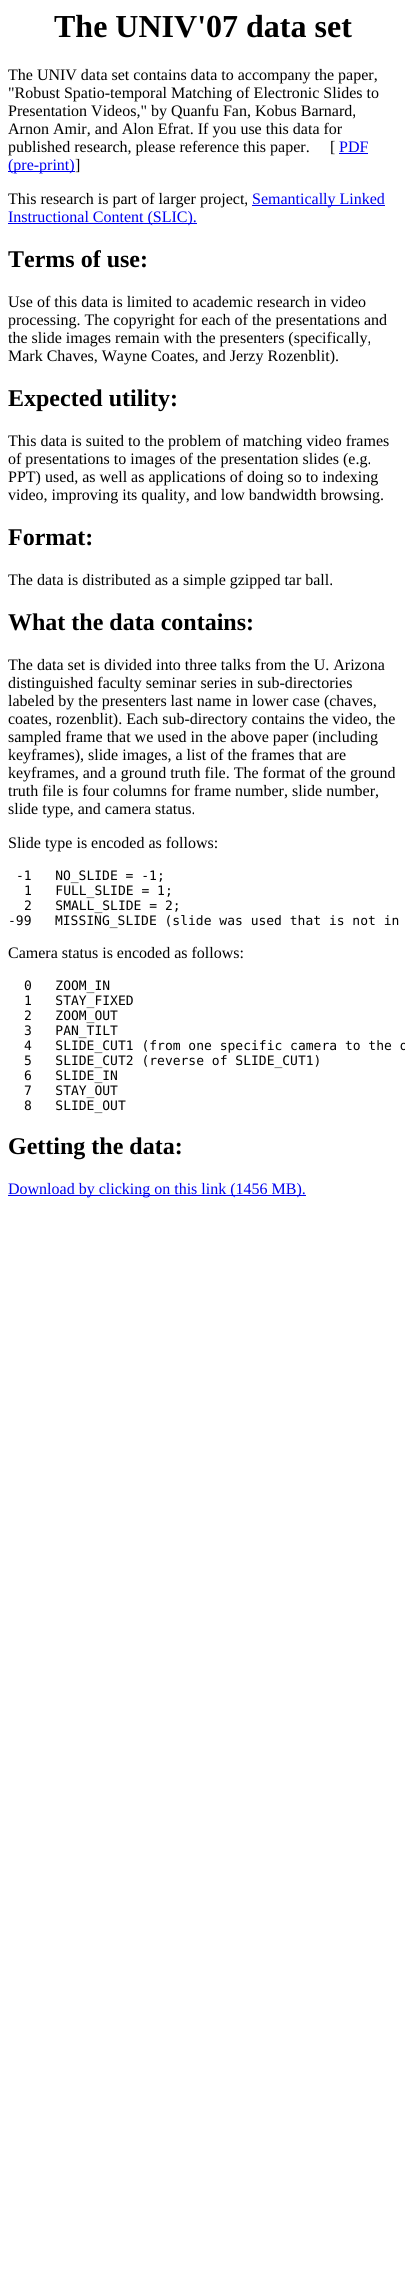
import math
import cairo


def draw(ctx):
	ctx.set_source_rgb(1, 1, 1)
	ctx.paint()
	ctx.select_font_face('Liberation Serif', cairo.FONT_SLANT_NORMAL, cairo.FONT_WEIGHT_BOLD)
	ctx.set_font_size(32)
	ctx.set_source_rgb(0, 0, 0)
	ctx.move_to(54, 37)
	ctx.show_text('The UNIV\'07 data set')
	ctx.select_font_face('Liberation Serif')
	ctx.set_font_size(16)
	for x, y, s in [
		(8, 80, 'The UNIV data set contains data to accompany the paper,'),
		(8, 98, '"Robust Spatio-temporal Matching of Electronic Slides to'),
		(8, 116, 'Presentation Videos," by Quanfu Fan, Kobus Barnard,'),
		(8, 134, 'Arnon Amir, and Alon Efrat. If you use this data for'),
		(8, 152, 'published research, please reference this paper.'),
		(330, 152, '['),
	]:
		ctx.move_to(x, y)
		ctx.show_text(s)
	ctx.set_source_rgb(0, 0, 0.933)
	ctx.move_to(339, 152)
	ctx.show_text('PDF')
	ctx.rectangle(339, 153, 29, 1)
	ctx.fill()
	ctx.rectangle(8, 171, 67, 1)
	ctx.fill()
	ctx.move_to(8, 170)
	ctx.show_text('(pre-print)')
	ctx.set_source_rgb(0, 0, 0)
	ctx.move_to(75, 170)
	ctx.show_text(']')
	ctx.move_to(8, 204)
	ctx.show_text('This research is part of larger project,')
	ctx.set_source_rgb(0, 0, 0.933)
	ctx.rectangle(252, 205, 133, 1)
	ctx.fill()
	ctx.move_to(252, 204)
	ctx.show_text('Semantically Linked')
	ctx.rectangle(8, 223, 189, 1)
	ctx.fill()
	ctx.move_to(8, 222)
	ctx.show_text('Instructional Content (SLIC).')
	ctx.select_font_face('Liberation Serif', cairo.FONT_SLANT_NORMAL, cairo.FONT_WEIGHT_BOLD)
	ctx.set_font_size(24)
	ctx.set_source_rgb(0, 0, 0)
	ctx.move_to(8, 267)
	ctx.show_text('Terms of use:')
	ctx.select_font_face('Liberation Serif')
	ctx.set_font_size(16)
	for x, y, s in [
		(8, 307, 'Use of this data is limited to academic research in video'),
		(8, 325, 'processing. The copyright for each of the presentations and'),
		(8, 343, 'the slide images remain with the presenters (specifically,'),
		(8, 361, 'Mark Chaves, Wayne Coates, and Jerzy Rozenblit).'),
	]:
		ctx.move_to(x, y)
		ctx.show_text(s)
	ctx.select_font_face('Liberation Serif', cairo.FONT_SLANT_NORMAL, cairo.FONT_WEIGHT_BOLD)
	ctx.set_font_size(24)
	ctx.move_to(8, 406)
	ctx.show_text('Expected utility:')
	ctx.select_font_face('Liberation Serif')
	ctx.set_font_size(16)
	for x, y, s in [
		(8, 446, 'This data is suited to the problem of matching video frames'),
		(8, 464, 'of presentations to images of the presentation slides (e.g.'),
		(8, 482, 'PPT) used, as well as applications of doing so to indexing'),
		(8, 500, 'video, improving its quality, and low bandwidth browsing.'),
	]:
		ctx.move_to(x, y)
		ctx.show_text(s)
	ctx.select_font_face('Liberation Serif', cairo.FONT_SLANT_NORMAL, cairo.FONT_WEIGHT_BOLD)
	ctx.set_font_size(24)
	ctx.move_to(8, 545)
	ctx.show_text('Format:')
	ctx.select_font_face('Liberation Serif')
	ctx.set_font_size(16)
	ctx.move_to(8, 585)
	ctx.show_text('The data is distributed as a simple gzipped tar ball.')
	ctx.select_font_face('Liberation Serif', cairo.FONT_SLANT_NORMAL, cairo.FONT_WEIGHT_BOLD)
	ctx.set_font_size(24)
	ctx.move_to(8, 630)
	ctx.show_text('What the data contains:')
	ctx.select_font_face('Liberation Serif')
	ctx.set_font_size(16)
	for x, y, s in [
		(8, 670, 'The data set is divided into three talks from the U. Arizona'),
		(8, 688, 'distinguished faculty seminar series in sub-directories'),
		(8, 706, 'labeled by the presenters last name in lower case (chaves,'),
		(8, 724, 'coates, rozenblit). Each sub-directory contains the video, the'),
		(8, 742, 'sampled frame that we used in the above paper (including'),
		(8, 760, 'keyframes), slide images, a list of the frames that are'),
		(8, 778, 'keyframes, and a ground truth file. The format of the ground'),
		(8, 796, 'truth file is four columns for frame number, slide number,'),
		(8, 814, 'slide type, and camera status.'),
		(8, 848, 'Slide type is encoded as follows:'),
	]:
		ctx.move_to(x, y)
		ctx.show_text(s)
	ctx.select_font_face('DejaVu Sans Mono')
	ctx.set_font_size(13)
	for x, y, s in [
		(16, 880, '-1   NO_SLIDE = -1;'),
		(24, 895, '1   FULL_SLIDE = 1;'),
		(24, 910, '2   SMALL_SLIDE = 2;'),
		(8, 925, '-99   MISSING_SLIDE (slide was used that is not in'),
	]:
		ctx.move_to(x, y)
		ctx.show_text(s)
	ctx.select_font_face('Liberation Serif')
	ctx.set_font_size(16)
	ctx.move_to(8, 958)
	ctx.show_text('Camera status is encoded as follows:')
	ctx.select_font_face('DejaVu Sans Mono')
	ctx.set_font_size(13)
	for x, y, s in [
		(24, 990, '0   ZOOM_IN'),
		(24, 1005, '1   STAY_FIXED'),
		(24, 1020, '2   ZOOM_OUT'),
		(24, 1035, '3   PAN_TILT'),
		(24, 1050, '4   SLIDE_CUT1 (from one specific camera to the o'),
		(24, 1065, '5   SLIDE_CUT2 (reverse of SLIDE_CUT1)'),
		(24, 1080, '6   SLIDE_IN'),
		(24, 1095, '7   STAY_OUT'),
		(24, 1110, '8   SLIDE_OUT'),
	]:
		ctx.move_to(x, y)
		ctx.show_text(s)
	ctx.select_font_face('Liberation Serif', cairo.FONT_SLANT_NORMAL, cairo.FONT_WEIGHT_BOLD)
	ctx.set_font_size(24)
	ctx.move_to(8, 1154)
	ctx.show_text('Getting the data:')
	ctx.set_source_rgb(0, 0, 0.933)
	ctx.rectangle(8, 1195, 298, 1)
	ctx.fill()
	ctx.select_font_face('Liberation Serif')
	ctx.set_font_size(16)
	ctx.move_to(8, 1194)
	ctx.show_text('Download by clicking on this link (1456 MB).')


surface = cairo.ImageSurface(cairo.FORMAT_RGB24, 405, 2291)
ctx = cairo.Context(surface)
options = cairo.FontOptions()
options.set_hint_metrics(cairo.HINT_METRICS_OFF)
options.set_hint_style(cairo.HINT_STYLE_NONE)
ctx.set_font_options(options)
ctx.set_miter_limit(4)
draw(ctx)
surface.write_to_png('image.png')
